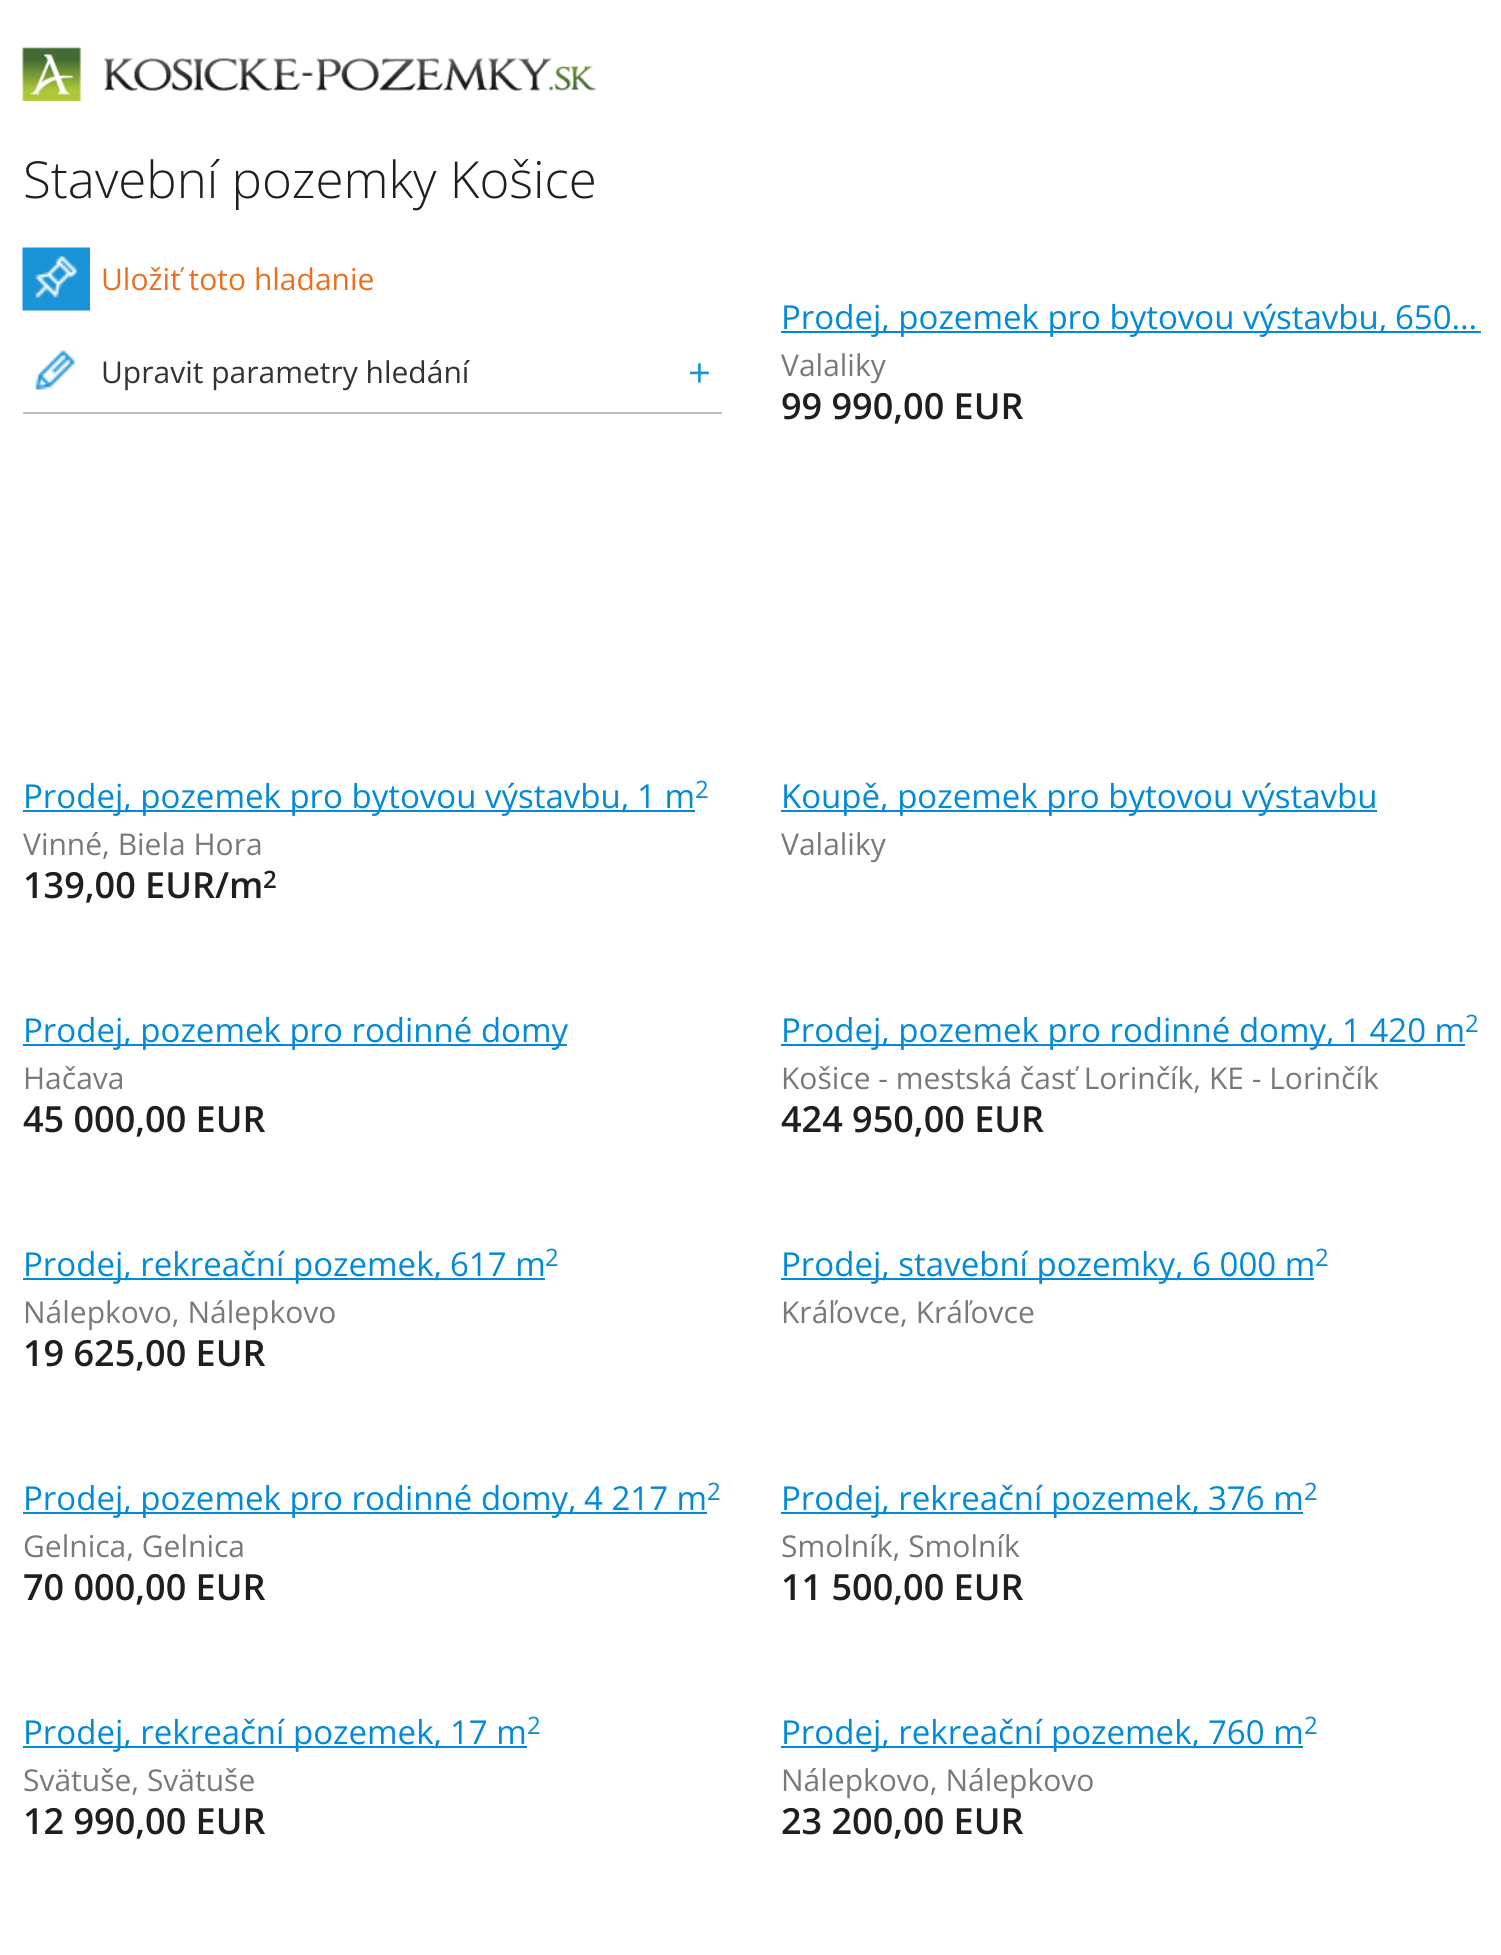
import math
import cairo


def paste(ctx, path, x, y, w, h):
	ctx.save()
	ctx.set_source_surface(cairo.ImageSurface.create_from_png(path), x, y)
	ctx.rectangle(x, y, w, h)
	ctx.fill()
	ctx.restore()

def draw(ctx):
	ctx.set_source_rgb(1, 1, 1)
	ctx.paint()
	paste(ctx, 'media/1.png', 22, 46, 575, 55)
	ctx.select_font_face('Open Sans Light')
	ctx.set_font_size(51)
	ctx.set_source_rgb(0.122, 0.122, 0.122)
	ctx.move_to(23, 198)
	ctx.show_text('Stavební pozemky Košice')
	paste(ctx, 'media/2.png', 22, 247, 68, 64)
	ctx.select_font_face('Open Sans')
	ctx.set_font_size(30)
	ctx.set_source_rgb(0.941, 0.431, 0.102)
	ctx.move_to(101, 290)
	ctx.show_text('Uložiť toto hladanie')
	paste(ctx, 'media/3.png', 35, 350, 40, 40)
	ctx.set_source_rgb(0.765, 0.749, 0.753)
	ctx.rectangle(23, 412, 699, 2)
	ctx.fill()
	ctx.set_source_rgb(0.2, 0.2, 0.2)
	ctx.move_to(101, 383)
	ctx.show_text('Upravit parametry hledání')
	ctx.set_font_size(40)
	ctx.set_source_rgb(0.102, 0.576, 0.847)
	ctx.move_to(688, 387)
	ctx.show_text('+')
	ctx.set_source_rgb(0.008, 0.541, 0.847)
	ctx.rectangle(781, 331, 700, 2)
	ctx.fill()
	ctx.set_font_size(33)
	ctx.move_to(781, 329)
	ctx.show_text('Prodej, pozemek pro bytovou výstavbu,')
	ctx.move_to(1395, 329)
	ctx.show_text('650…')
	ctx.set_font_size(30)
	ctx.set_source_rgb(0.475, 0.475, 0.475)
	ctx.move_to(781, 376)
	ctx.show_text('Valaliky')
	ctx.select_font_face('Open Sans SemiBold')
	ctx.set_font_size(36)
	ctx.set_source_rgb(0.122, 0.122, 0.122)
	ctx.move_to(781, 419)
	ctx.show_text('99 990,00 EUR')
	ctx.set_source_rgb(0.008, 0.541, 0.847)
	ctx.rectangle(23, 810, 672, 2)
	ctx.fill()
	ctx.select_font_face('Open Sans')
	ctx.set_font_size(33)
	ctx.move_to(23, 808)
	ctx.show_text('Prodej, pozemek pro bytovou výstavbu,')
	ctx.move_to(637, 808)
	ctx.show_text('1 m')
	ctx.set_font_size(24)
	ctx.move_to(695, 798)
	ctx.show_text('2')
	ctx.set_font_size(30)
	ctx.set_source_rgb(0.475, 0.475, 0.475)
	ctx.move_to(23, 855)
	ctx.show_text('Vinné, Biela Hora')
	ctx.select_font_face('Open Sans SemiBold')
	ctx.set_font_size(36)
	ctx.set_source_rgb(0.122, 0.122, 0.122)
	ctx.move_to(23, 898)
	ctx.show_text('139,00 EUR/m')
	ctx.set_font_size(24)
	ctx.move_to(263, 888)
	ctx.show_text('2')
	ctx.set_source_rgb(0.008, 0.541, 0.847)
	ctx.rectangle(781, 810, 596, 2)
	ctx.fill()
	ctx.select_font_face('Open Sans')
	ctx.set_font_size(33)
	ctx.move_to(781, 808)
	ctx.show_text('Koupě, pozemek pro bytovou výstavbu')
	ctx.set_font_size(30)
	ctx.set_source_rgb(0.475, 0.475, 0.475)
	ctx.move_to(781, 855)
	ctx.show_text('Valaliky')
	ctx.set_source_rgb(0.008, 0.541, 0.847)
	ctx.rectangle(23, 1044, 544, 2)
	ctx.fill()
	ctx.set_font_size(33)
	ctx.move_to(23, 1042)
	ctx.show_text('Prodej, pozemek pro rodinné domy')
	ctx.set_font_size(30)
	ctx.set_source_rgb(0.475, 0.475, 0.475)
	ctx.move_to(23, 1089)
	ctx.show_text('Hačava')
	ctx.select_font_face('Open Sans SemiBold')
	ctx.set_font_size(36)
	ctx.set_source_rgb(0.122, 0.122, 0.122)
	ctx.move_to(23, 1132)
	ctx.show_text('45 000,00 EUR')
	ctx.set_source_rgb(0.008, 0.541, 0.847)
	ctx.rectangle(781, 1044, 684, 2)
	ctx.fill()
	ctx.select_font_face('Open Sans')
	ctx.set_font_size(33)
	ctx.move_to(781, 1042)
	ctx.show_text('Prodej, pozemek pro rodinné domy,')
	ctx.move_to(1342, 1042)
	ctx.show_text('1 420 m')
	ctx.set_font_size(24)
	ctx.move_to(1465, 1032)
	ctx.show_text('2')
	ctx.set_font_size(30)
	ctx.set_source_rgb(0.475, 0.475, 0.475)
	ctx.move_to(781, 1089)
	ctx.show_text('Košice - mestská časť Lorinčík, KE - Lorinčík')
	ctx.select_font_face('Open Sans SemiBold')
	ctx.set_font_size(36)
	ctx.set_source_rgb(0.122, 0.122, 0.122)
	ctx.move_to(781, 1132)
	ctx.show_text('424 950,00 EUR')
	ctx.set_source_rgb(0.008, 0.541, 0.847)
	ctx.rectangle(23, 1278, 522, 2)
	ctx.fill()
	ctx.select_font_face('Open Sans')
	ctx.set_font_size(33)
	ctx.move_to(23, 1276)
	ctx.show_text('Prodej, rekreační pozemek,')
	ctx.move_to(450, 1276)
	ctx.show_text('617 m')
	ctx.set_font_size(24)
	ctx.move_to(545, 1266)
	ctx.show_text('2')
	ctx.set_font_size(30)
	ctx.set_source_rgb(0.475, 0.475, 0.475)
	ctx.move_to(23, 1323)
	ctx.show_text('Nálepkovo, Nálepkovo')
	ctx.select_font_face('Open Sans SemiBold')
	ctx.set_font_size(36)
	ctx.set_source_rgb(0.122, 0.122, 0.122)
	ctx.move_to(23, 1366)
	ctx.show_text('19 625,00 EUR')
	ctx.set_source_rgb(0.008, 0.541, 0.847)
	ctx.rectangle(781, 1278, 533, 2)
	ctx.fill()
	ctx.select_font_face('Open Sans')
	ctx.set_font_size(33)
	ctx.move_to(781, 1276)
	ctx.show_text('Prodej, stavební pozemky, 6 000 m')
	ctx.set_font_size(24)
	ctx.move_to(1315, 1266)
	ctx.show_text('2')
	ctx.set_font_size(30)
	ctx.set_source_rgb(0.475, 0.475, 0.475)
	ctx.move_to(781, 1323)
	ctx.show_text('Kráľovce, Kráľovce')
	ctx.set_source_rgb(0.008, 0.541, 0.847)
	ctx.rectangle(23, 1512, 684, 2)
	ctx.fill()
	ctx.set_font_size(33)
	ctx.move_to(23, 1510)
	ctx.show_text('Prodej, pozemek pro rodinné domy,')
	ctx.move_to(584, 1510)
	ctx.show_text('4 217 m')
	ctx.set_font_size(24)
	ctx.move_to(707, 1500)
	ctx.show_text('2')
	ctx.set_font_size(30)
	ctx.set_source_rgb(0.475, 0.475, 0.475)
	ctx.move_to(23, 1557)
	ctx.show_text('Gelnica, Gelnica')
	ctx.select_font_face('Open Sans SemiBold')
	ctx.set_font_size(36)
	ctx.set_source_rgb(0.122, 0.122, 0.122)
	ctx.move_to(23, 1600)
	ctx.show_text('70 000,00 EUR')
	ctx.set_source_rgb(0.008, 0.541, 0.847)
	ctx.rectangle(781, 1512, 522, 2)
	ctx.fill()
	ctx.select_font_face('Open Sans')
	ctx.set_font_size(33)
	ctx.move_to(781, 1510)
	ctx.show_text('Prodej, rekreační pozemek,')
	ctx.move_to(1208, 1510)
	ctx.show_text('376 m')
	ctx.set_font_size(24)
	ctx.move_to(1304, 1500)
	ctx.show_text('2')
	ctx.set_font_size(30)
	ctx.set_source_rgb(0.475, 0.475, 0.475)
	ctx.move_to(781, 1557)
	ctx.show_text('Smolník, Smolník')
	ctx.select_font_face('Open Sans SemiBold')
	ctx.set_font_size(36)
	ctx.set_source_rgb(0.122, 0.122, 0.122)
	ctx.move_to(781, 1600)
	ctx.show_text('11 500,00 EUR')
	ctx.set_source_rgb(0.008, 0.541, 0.847)
	ctx.rectangle(23, 1746, 504, 2)
	ctx.fill()
	ctx.select_font_face('Open Sans')
	ctx.set_font_size(33)
	ctx.move_to(23, 1744)
	ctx.show_text('Prodej, rekreační pozemek,')
	ctx.move_to(450, 1744)
	ctx.show_text('17 m')
	ctx.set_font_size(24)
	ctx.move_to(527, 1734)
	ctx.show_text('2')
	ctx.set_font_size(30)
	ctx.set_source_rgb(0.475, 0.475, 0.475)
	ctx.move_to(23, 1791)
	ctx.show_text('Svätuše, Svätuše')
	ctx.select_font_face('Open Sans SemiBold')
	ctx.set_font_size(36)
	ctx.set_source_rgb(0.122, 0.122, 0.122)
	ctx.move_to(23, 1834)
	ctx.show_text('12 990,00 EUR')
	ctx.set_source_rgb(0.008, 0.541, 0.847)
	ctx.rectangle(781, 1746, 522, 2)
	ctx.fill()
	ctx.select_font_face('Open Sans')
	ctx.set_font_size(33)
	ctx.move_to(781, 1744)
	ctx.show_text('Prodej, rekreační pozemek,')
	ctx.move_to(1208, 1744)
	ctx.show_text('760 m')
	ctx.set_font_size(24)
	ctx.move_to(1304, 1734)
	ctx.show_text('2')
	ctx.set_font_size(30)
	ctx.set_source_rgb(0.475, 0.475, 0.475)
	ctx.move_to(781, 1791)
	ctx.show_text('Nálepkovo, Nálepkovo')
	ctx.select_font_face('Open Sans SemiBold')
	ctx.set_font_size(36)
	ctx.set_source_rgb(0.122, 0.122, 0.122)
	ctx.move_to(781, 1834)
	ctx.show_text('23 200,00 EUR')


surface = cairo.ImageSurface(cairo.FORMAT_RGB24, 1501, 1955)
ctx = cairo.Context(surface)
options = cairo.FontOptions()
options.set_hint_metrics(cairo.HINT_METRICS_OFF)
options.set_hint_style(cairo.HINT_STYLE_NONE)
ctx.set_font_options(options)
ctx.set_miter_limit(4)
draw(ctx)
surface.write_to_png('image.png')
